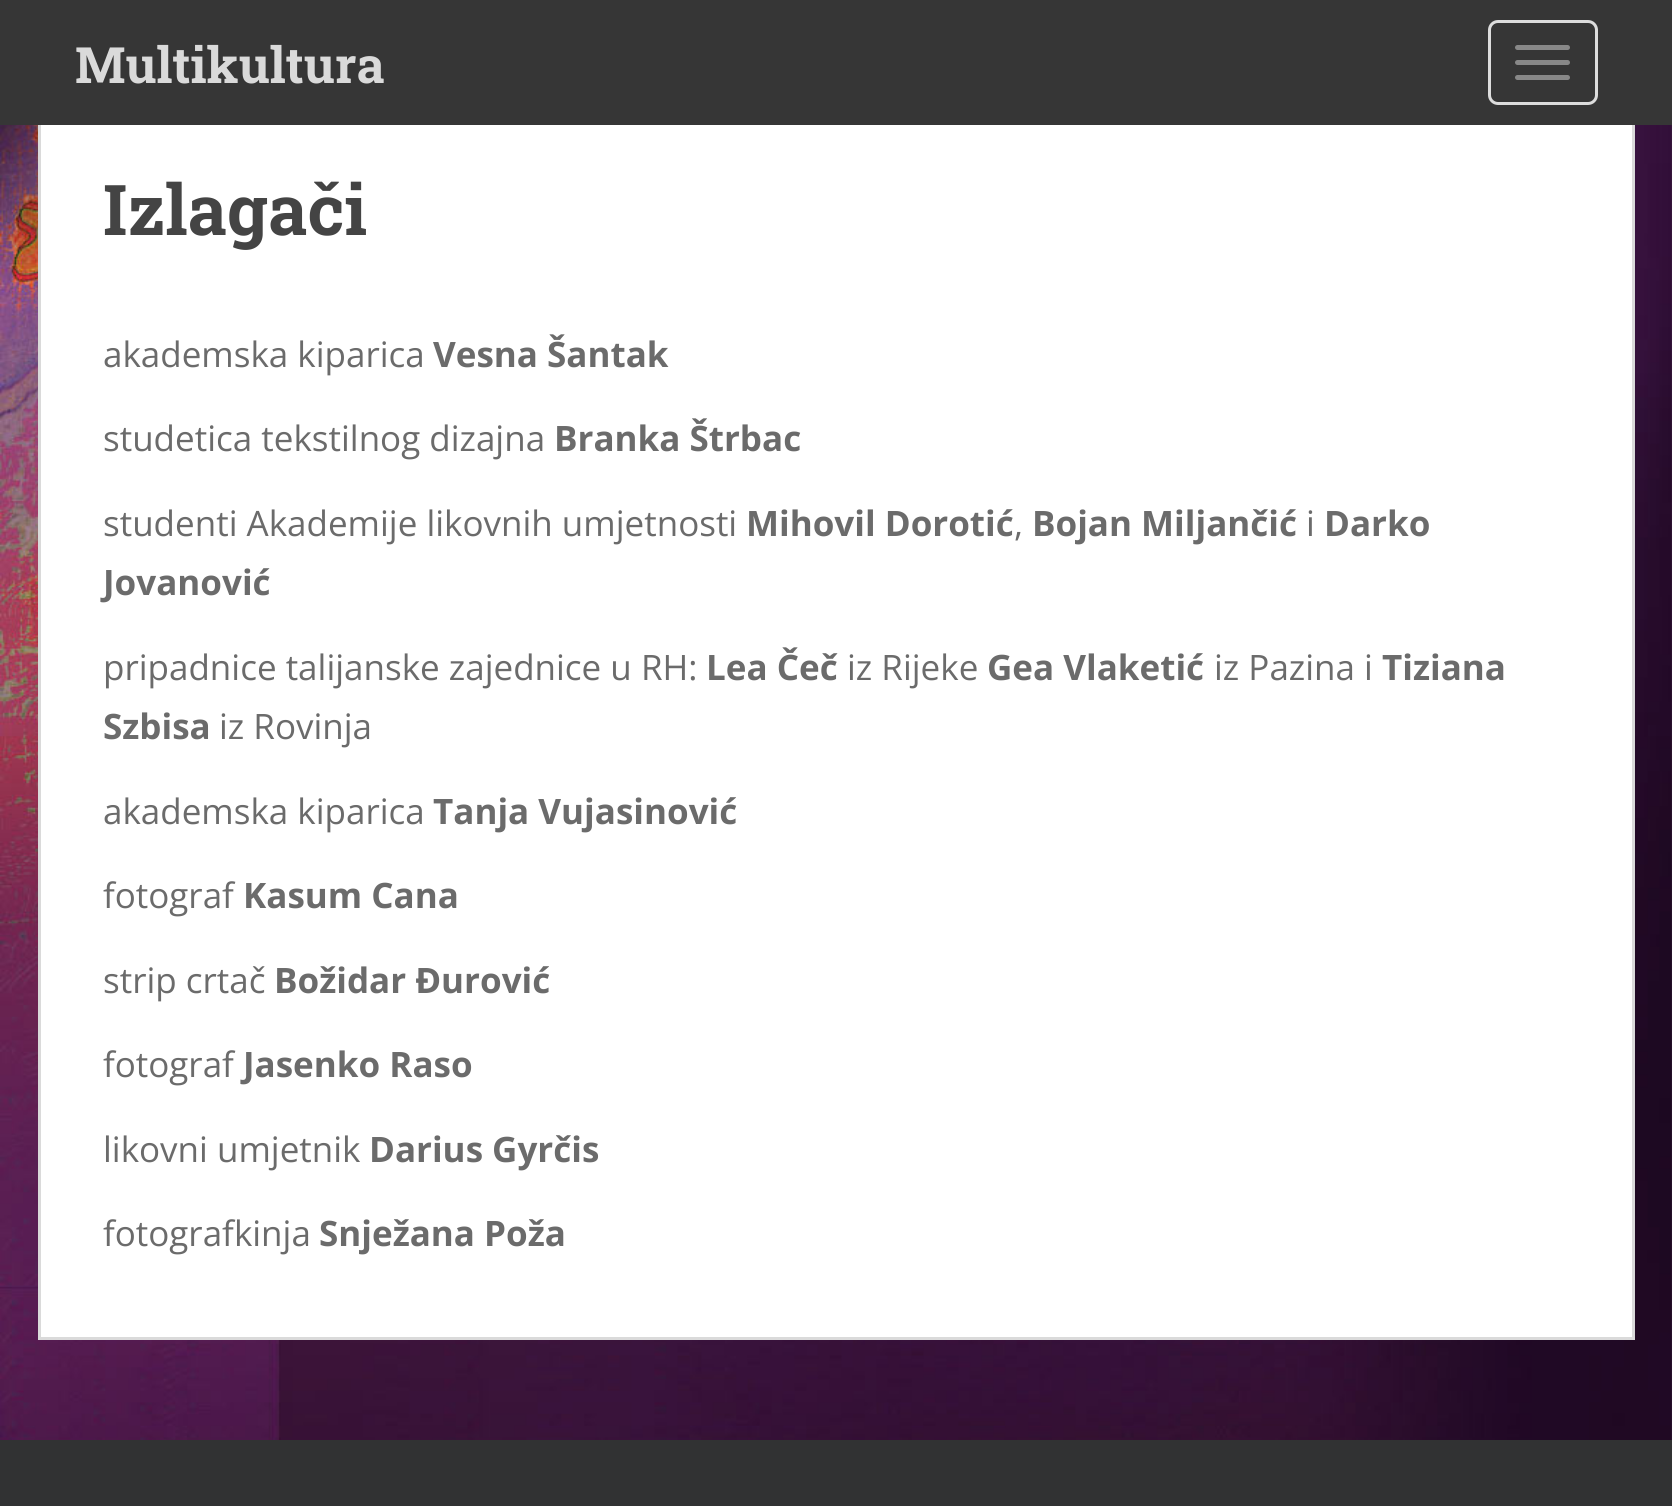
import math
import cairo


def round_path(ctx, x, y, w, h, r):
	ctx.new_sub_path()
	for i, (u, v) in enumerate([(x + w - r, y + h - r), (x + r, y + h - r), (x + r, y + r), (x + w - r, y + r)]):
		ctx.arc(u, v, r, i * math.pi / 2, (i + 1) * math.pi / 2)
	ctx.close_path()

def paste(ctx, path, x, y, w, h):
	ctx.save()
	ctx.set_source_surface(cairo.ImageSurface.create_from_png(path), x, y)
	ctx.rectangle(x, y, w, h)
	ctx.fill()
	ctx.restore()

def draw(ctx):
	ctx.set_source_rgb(1, 1, 1)
	ctx.paint()
	paste(ctx, 'media/1.png', 0, 125, 1672, 1315)
	ctx.set_source_rgb(1, 1, 1)
	ctx.rectangle(41, 125, 1591, 1212)
	ctx.fill()
	ctx.rectangle(39.5, 121.5, 1594, 1217)
	ctx.set_source_rgb(0.855, 0.855, 0.855)
	ctx.set_line_width(3)
	ctx.stroke()
	ctx.set_source_rgb(0.212, 0.212, 0.212)
	ctx.rectangle(0, 0, 1672, 125)
	ctx.fill()
	ctx.select_font_face('Roboto Slab', cairo.FONT_SLANT_NORMAL, cairo.FONT_WEIGHT_BOLD)
	ctx.set_font_size(50)
	ctx.set_source_rgb(0.855, 0.855, 0.855)
	ctx.move_to(75, 83)
	ctx.show_text('Multikultura')
	round_path(ctx, 1489.5, 21.5, 107, 82, 8.5)
	ctx.set_source_rgb(0.867, 0.867, 0.867)
	ctx.stroke()
	ctx.set_source_rgb(0.533, 0.533, 0.533)
	round_path(ctx, 1515, 45, 55, 5, 2.5)
	ctx.fill()
	round_path(ctx, 1515, 60, 55, 5, 2.5)
	ctx.fill()
	round_path(ctx, 1515, 75, 55, 5, 2.5)
	ctx.fill()
	ctx.set_font_size(70)
	ctx.set_source_rgb(0.267, 0.267, 0.267)
	ctx.move_to(103, 235)
	ctx.show_text('Izlagači')
	ctx.select_font_face('Open Sans')
	ctx.set_font_size(35)
	ctx.set_source_rgb(0.42, 0.42, 0.42)
	ctx.move_to(103, 367)
	ctx.show_text('akademska kiparica')
	ctx.select_font_face('Open Sans', cairo.FONT_SLANT_NORMAL, cairo.FONT_WEIGHT_BOLD)
	ctx.move_to(433, 367)
	ctx.show_text('Vesna Šantak')
	ctx.select_font_face('Open Sans')
	ctx.move_to(103, 451)
	ctx.show_text('studetica tekstilnog dizajna')
	ctx.select_font_face('Open Sans', cairo.FONT_SLANT_NORMAL, cairo.FONT_WEIGHT_BOLD)
	ctx.move_to(554, 451)
	ctx.show_text('Branka Štrbac')
	ctx.select_font_face('Open Sans')
	ctx.move_to(103, 536)
	ctx.show_text('studenti Akademije likovnih umjetnosti')
	ctx.select_font_face('Open Sans', cairo.FONT_SLANT_NORMAL, cairo.FONT_WEIGHT_BOLD)
	ctx.move_to(746, 536)
	ctx.show_text('Mihovil Dorotić')
	ctx.select_font_face('Open Sans')
	ctx.move_to(1014, 536)
	ctx.show_text(',')
	ctx.select_font_face('Open Sans', cairo.FONT_SLANT_NORMAL, cairo.FONT_WEIGHT_BOLD)
	ctx.move_to(1032, 536)
	ctx.show_text('Bojan Miljančić')
	ctx.select_font_face('Open Sans')
	ctx.move_to(1306, 536)
	ctx.show_text('i')
	ctx.select_font_face('Open Sans', cairo.FONT_SLANT_NORMAL, cairo.FONT_WEIGHT_BOLD)
	ctx.move_to(1324, 536)
	ctx.show_text('Darko')
	ctx.move_to(103, 595)
	ctx.show_text('Jovanović')
	ctx.select_font_face('Open Sans')
	ctx.move_to(103, 680)
	ctx.show_text('pripadnice talijanske zajednice u RH:')
	ctx.select_font_face('Open Sans', cairo.FONT_SLANT_NORMAL, cairo.FONT_WEIGHT_BOLD)
	ctx.move_to(706, 680)
	ctx.show_text('Lea Čeč')
	ctx.select_font_face('Open Sans')
	ctx.move_to(847, 680)
	ctx.show_text('iz Rijeke')
	ctx.select_font_face('Open Sans', cairo.FONT_SLANT_NORMAL, cairo.FONT_WEIGHT_BOLD)
	ctx.move_to(987, 680)
	ctx.show_text('Gea Vlaketić')
	ctx.select_font_face('Open Sans')
	ctx.move_to(1214, 680)
	ctx.show_text('iz Pazina i')
	ctx.select_font_face('Open Sans', cairo.FONT_SLANT_NORMAL, cairo.FONT_WEIGHT_BOLD)
	ctx.move_to(1382, 680)
	ctx.show_text('Tiziana')
	ctx.move_to(103, 739)
	ctx.show_text('Szbisa')
	ctx.select_font_face('Open Sans')
	ctx.move_to(219, 739)
	ctx.show_text('iz Rovinja')
	ctx.move_to(103, 824)
	ctx.show_text('akademska kiparica')
	ctx.select_font_face('Open Sans', cairo.FONT_SLANT_NORMAL, cairo.FONT_WEIGHT_BOLD)
	ctx.move_to(433, 824)
	ctx.show_text('Tanja Vujasinović')
	ctx.select_font_face('Open Sans')
	ctx.move_to(103, 908)
	ctx.show_text('fotograf')
	ctx.select_font_face('Open Sans', cairo.FONT_SLANT_NORMAL, cairo.FONT_WEIGHT_BOLD)
	ctx.move_to(243, 908)
	ctx.show_text('Kasum Cana')
	ctx.select_font_face('Open Sans')
	ctx.move_to(103, 993)
	ctx.show_text('strip crtač')
	ctx.select_font_face('Open Sans', cairo.FONT_SLANT_NORMAL, cairo.FONT_WEIGHT_BOLD)
	ctx.move_to(274, 993)
	ctx.show_text('Božidar Đurović')
	ctx.select_font_face('Open Sans')
	ctx.move_to(103, 1077)
	ctx.show_text('fotograf')
	ctx.select_font_face('Open Sans', cairo.FONT_SLANT_NORMAL, cairo.FONT_WEIGHT_BOLD)
	ctx.move_to(243, 1077)
	ctx.show_text('Jasenko Raso')
	ctx.select_font_face('Open Sans')
	ctx.move_to(103, 1162)
	ctx.show_text('likovni umjetnik')
	ctx.select_font_face('Open Sans', cairo.FONT_SLANT_NORMAL, cairo.FONT_WEIGHT_BOLD)
	ctx.move_to(369, 1162)
	ctx.show_text('Darius Gyrčis')
	ctx.select_font_face('Open Sans')
	ctx.move_to(103, 1246)
	ctx.show_text('fotografkinja')
	ctx.select_font_face('Open Sans', cairo.FONT_SLANT_NORMAL, cairo.FONT_WEIGHT_BOLD)
	ctx.move_to(319, 1246)
	ctx.show_text('Snježana Poža')
	ctx.set_source_rgb(0.192, 0.196, 0.2)
	ctx.rectangle(0, 1440, 1672, 66)
	ctx.fill()


surface = cairo.ImageSurface(cairo.FORMAT_RGB24, 1672, 1506)
ctx = cairo.Context(surface)
options = cairo.FontOptions()
options.set_hint_metrics(cairo.HINT_METRICS_OFF)
options.set_hint_style(cairo.HINT_STYLE_NONE)
ctx.set_font_options(options)
ctx.set_miter_limit(4)
draw(ctx)
surface.write_to_png('image.png')
